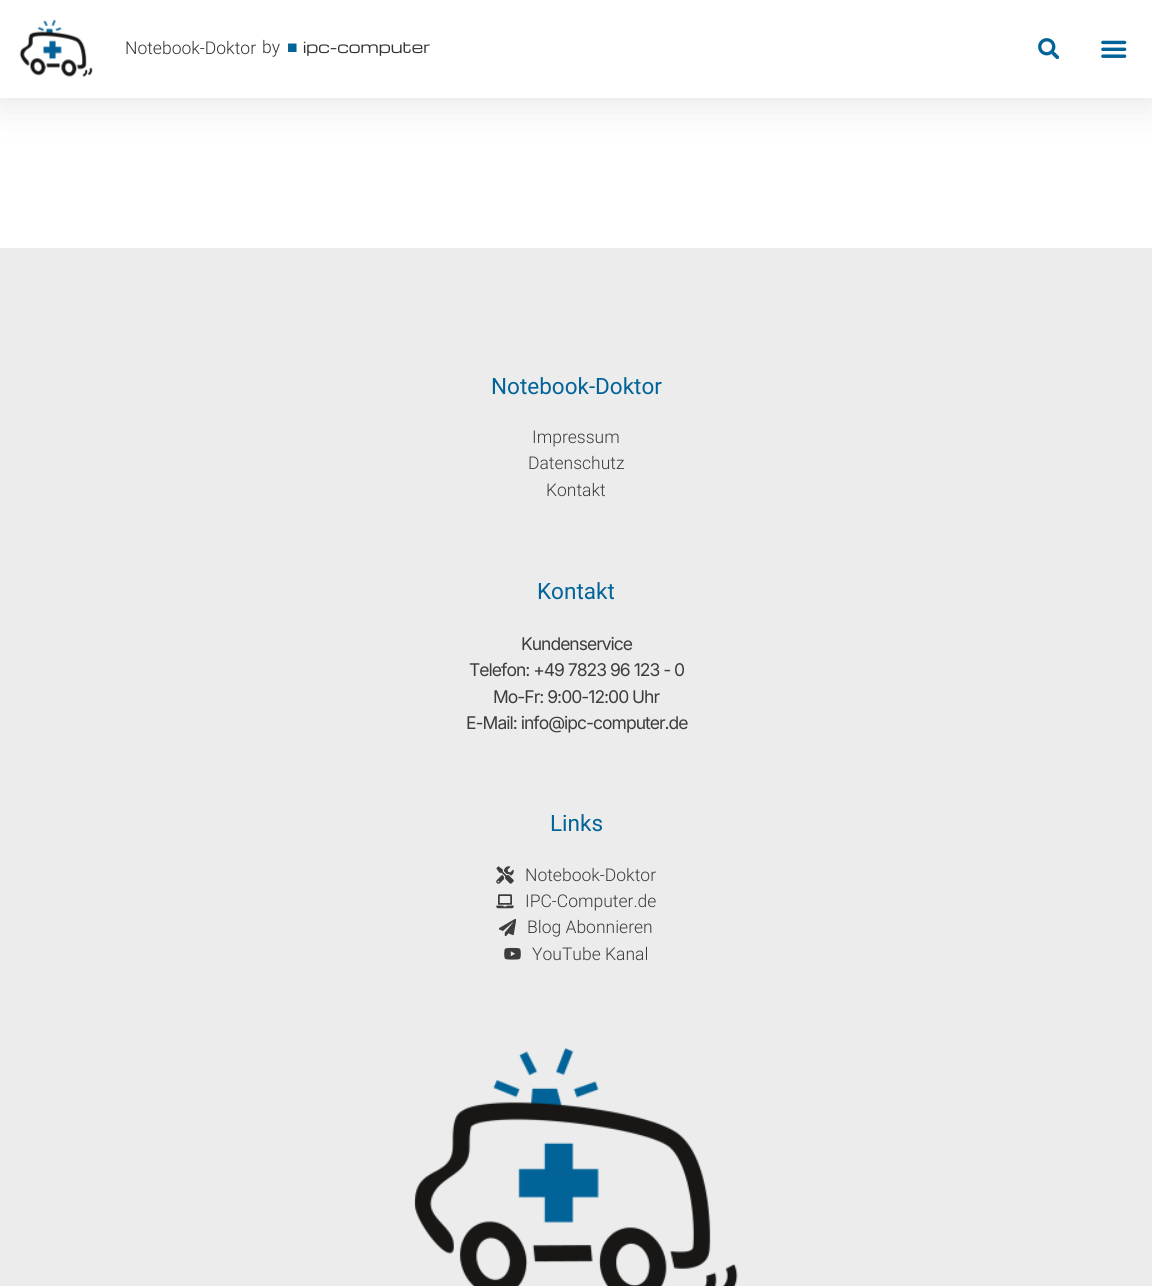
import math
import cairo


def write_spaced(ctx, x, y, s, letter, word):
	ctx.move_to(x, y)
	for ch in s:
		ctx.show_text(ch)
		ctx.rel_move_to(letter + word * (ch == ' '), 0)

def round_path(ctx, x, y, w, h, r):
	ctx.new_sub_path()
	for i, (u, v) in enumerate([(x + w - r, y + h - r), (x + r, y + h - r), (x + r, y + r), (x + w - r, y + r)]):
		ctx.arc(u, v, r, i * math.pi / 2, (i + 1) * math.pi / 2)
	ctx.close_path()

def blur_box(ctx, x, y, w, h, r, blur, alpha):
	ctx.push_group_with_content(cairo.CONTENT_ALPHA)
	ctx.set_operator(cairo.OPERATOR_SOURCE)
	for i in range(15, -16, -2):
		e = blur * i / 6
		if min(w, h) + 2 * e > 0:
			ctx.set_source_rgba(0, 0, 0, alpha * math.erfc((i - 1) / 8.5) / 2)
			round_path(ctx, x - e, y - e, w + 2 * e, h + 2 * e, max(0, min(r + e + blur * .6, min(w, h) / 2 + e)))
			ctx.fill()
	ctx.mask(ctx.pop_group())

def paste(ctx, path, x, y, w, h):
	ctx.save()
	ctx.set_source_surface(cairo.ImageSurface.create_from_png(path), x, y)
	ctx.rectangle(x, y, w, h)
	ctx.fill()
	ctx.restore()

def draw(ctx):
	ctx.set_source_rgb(1, 1, 1)
	ctx.paint()
	ctx.set_source_rgb(0, 0, 0)
	blur_box(ctx, 0, 6, 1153, 98, 0, 19, 0.1)
	ctx.set_source_rgb(1, 1, 1)
	ctx.rectangle(0, 0, 1152, 98)
	ctx.fill()
	paste(ctx, 'media/1.png', 19, 19, 74, 59)
	ctx.select_font_face('Roboto Light')
	ctx.set_font_size(17.5)
	ctx.set_source_rgb(0.2, 0.2, 0.2)
	ctx.move_to(125, 54)
	ctx.show_text('Notebook-Doktor')
	ctx.move_to(262, 53)
	ctx.show_text('by')
	ctx.select_font_face('Liberation Sans')
	ctx.set_source_rgb(0.004, 0.388, 0.592)
	ctx.move_to(287, 53)
	ctx.show_text('■')
	ctx.select_font_face('Michroma')
	ctx.set_font_size(15)
	ctx.set_source_rgb(0.2, 0.2, 0.2)
	ctx.move_to(303, 53)
	ctx.show_text('ipc-computer')
	paste(ctx, 'media/2.png', 1038, 38, 21, 21)
	paste(ctx, 'media/3.png', 1101, 40, 26, 18)
	ctx.set_source_rgb(0.922, 0.922, 0.922)
	ctx.rectangle(0, 248, 1152, 1038)
	ctx.fill()
	ctx.select_font_face('Roboto')
	ctx.set_font_size(22.5)
	ctx.set_source_rgb(0.004, 0.388, 0.592)
	ctx.move_to(491, 394)
	ctx.show_text('Notebook-Doktor')
	ctx.select_font_face('Roboto Light')
	ctx.set_font_size(17.5)
	ctx.set_source_rgb(0.239, 0.239, 0.239)
	for x, y, s in [
		(532, 443, 'Impressum'),
		(528, 469, 'Datenschutz'),
		(546, 496, 'Kontakt'),
	]:
		ctx.move_to(x, y)
		ctx.show_text(s)
	ctx.select_font_face('Roboto')
	ctx.set_font_size(22.5)
	ctx.set_source_rgb(0.004, 0.388, 0.592)
	ctx.move_to(537, 599)
	ctx.show_text('Kontakt')
	ctx.select_font_face('Inter')
	ctx.set_font_size(17.5)
	ctx.set_source_rgb(0.239, 0.239, 0.239)
	for x, y, s in [
		(521, 650, 'Kundenservice'),
		(469, 676, 'Telefon: +49 7823 96 123 - 0'),
		(493, 703, 'Mo-Fr: 9:00-12:00 Uhr'),
		(466, 729, 'E-Mail: info@ipc-computer.de'),
	]:
		write_spaced(ctx, x, y, s, -1, 0)
	ctx.select_font_face('Roboto')
	ctx.set_font_size(22.5)
	ctx.set_source_rgb(0.004, 0.388, 0.592)
	ctx.move_to(550, 831)
	ctx.show_text('Links')
	paste(ctx, 'media/4.png', 496, 866, 18, 18)
	ctx.select_font_face('Roboto Light')
	ctx.set_font_size(17.5)
	ctx.set_source_rgb(0.239, 0.239, 0.239)
	ctx.move_to(525, 881)
	ctx.show_text('Notebook-Doktor')
	paste(ctx, 'media/5.png', 496, 894, 18, 15)
	ctx.move_to(525, 907)
	ctx.show_text('IPC-Computer.de')
	paste(ctx, 'media/6.png', 499, 919, 17, 17)
	ctx.move_to(527, 933)
	ctx.show_text('Blog Abonnieren')
	paste(ctx, 'media/7.png', 504, 947, 17, 13)
	ctx.move_to(532, 960)
	ctx.show_text('YouTube Kanal')
	paste(ctx, 'media/8.png', 414, 1047, 324, 239)


surface = cairo.ImageSurface(cairo.FORMAT_RGB24, 1152, 1286)
ctx = cairo.Context(surface)
options = cairo.FontOptions()
options.set_hint_metrics(cairo.HINT_METRICS_OFF)
options.set_hint_style(cairo.HINT_STYLE_NONE)
ctx.set_font_options(options)
ctx.set_miter_limit(4)
draw(ctx)
surface.write_to_png('image.png')
